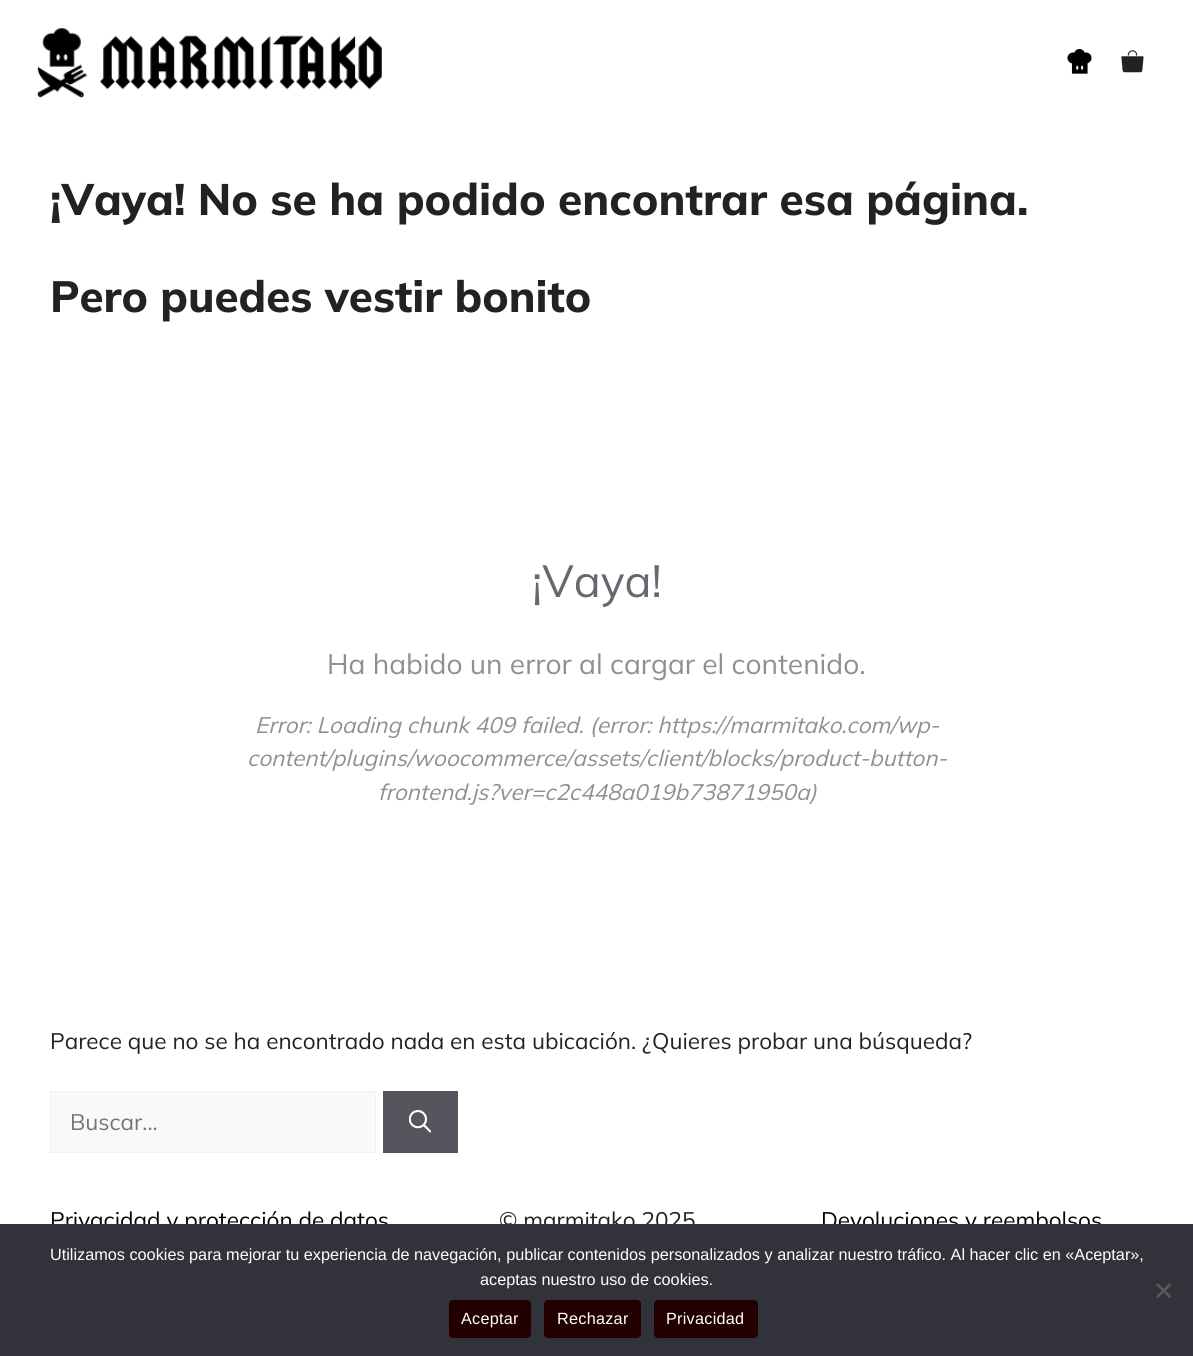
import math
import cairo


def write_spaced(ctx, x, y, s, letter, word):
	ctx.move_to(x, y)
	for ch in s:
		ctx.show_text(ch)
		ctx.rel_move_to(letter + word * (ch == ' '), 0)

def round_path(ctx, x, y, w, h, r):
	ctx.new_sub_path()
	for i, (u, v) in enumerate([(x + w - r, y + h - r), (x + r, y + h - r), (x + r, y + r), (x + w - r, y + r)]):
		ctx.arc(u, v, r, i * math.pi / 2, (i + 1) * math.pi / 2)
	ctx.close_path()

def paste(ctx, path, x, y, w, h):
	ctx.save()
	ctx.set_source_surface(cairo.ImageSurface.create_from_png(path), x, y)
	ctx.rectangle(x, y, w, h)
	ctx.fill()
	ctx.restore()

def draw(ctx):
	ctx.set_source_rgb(1, 1, 1)
	ctx.paint()
	paste(ctx, 'media/1.png', 37, 28, 345, 70)
	paste(ctx, 'media/2.png', 1067, 49, 25, 25)
	paste(ctx, 'media/3.png', 1121, 50, 23, 23)
	ctx.select_font_face('Mulish ExtraBold')
	ctx.set_font_size(44.1)
	ctx.set_source_rgb(0.133, 0.133, 0.133)
	ctx.move_to(50, 215)
	ctx.show_text('¡Vaya! No se ha podido encontrar esa página.')
	ctx.set_font_size(43.75)
	ctx.move_to(50, 312)
	ctx.show_text('Pero puedes vestir bonito')
	ctx.select_font_face('Mulish')
	ctx.set_font_size(45)
	ctx.set_source_rgb(0.392, 0.412, 0.439)
	ctx.move_to(532, 597)
	ctx.show_text('¡Vaya!')
	ctx.set_font_size(28.1)
	ctx.set_source_rgb(0.549, 0.561, 0.58)
	ctx.move_to(327, 674)
	ctx.show_text('Ha habido un error al cargar el contenido.')
	ctx.select_font_face('Mulish', cairo.FONT_SLANT_ITALIC)
	ctx.set_font_size(22.5)
	for x, y, s in [
		(255, 733, 'Error: Loading chunk 409 failed. (error: https://marmitako.com/wp-'),
		(247, 766, 'content/plugins/woocommerce/assets/client/blocks/product-button-'),
		(378, 800, 'frontend.js?ver=c2c448a019b73871950a)'),
	]:
		ctx.move_to(x, y)
		ctx.show_text(s)
	ctx.select_font_face('Mulish')
	ctx.set_source_rgb(0.133, 0.133, 0.133)
	ctx.move_to(50, 1049)
	ctx.show_text('Parece que no se ha encontrado nada en esta ubicación. ¿Quieres probar una búsqueda?')
	ctx.set_source_rgb(0.969, 0.973, 0.976)
	ctx.rectangle(50.5, 1091.5, 325, 61)
	ctx.fill_preserve()
	ctx.set_source_rgb(0.941, 0.941, 0.941)
	ctx.set_line_width(1)
	ctx.stroke()
	ctx.set_source_rgb(0.459, 0.459, 0.459)
	ctx.move_to(70, 1130)
	ctx.show_text('Buscar...')
	ctx.set_source_rgb(0.333, 0.333, 0.369)
	ctx.rectangle(383, 1091, 75, 62)
	ctx.fill()
	paste(ctx, 'media/4.png', 409, 1110, 22, 23)
	ctx.set_source_rgb(0.016, 0.016, 0.016)
	ctx.move_to(50, 1228)
	ctx.show_text('Privacidad y protección de datos')
	ctx.set_source_rgb(0.133, 0.133, 0.133)
	ctx.move_to(499, 1228)
	ctx.show_text('© marmitako 2025')
	ctx.set_source_rgb(0.016, 0.016, 0.016)
	ctx.move_to(821, 1228)
	ctx.show_text('Devoluciones y reembolsos')
	ctx.set_source_rgb(0.196, 0.196, 0.227)
	ctx.rectangle(0, 1224, 1193, 132)
	ctx.fill()
	ctx.select_font_face('Liberation Sans')
	ctx.set_font_size(16.25)
	ctx.set_source_rgb(1, 1, 1)
	ctx.move_to(50, 1260)
	ctx.show_text('Utilizamos cookies para mejorar tu experiencia de navegación, publicar contenidos personalizados y analizar nuestro tráfico. Al hacer clic en «Aceptar»,')
	ctx.move_to(480, 1285)
	ctx.show_text('aceptas nuestro uso de cookies.')
	ctx.set_source_rgb(0.349, 0.349, 0.365)
	ctx.new_path()
	ctx.move_to(1169.5, 1283)
	ctx.line_to(1171.5, 1285)
	ctx.line_to(1158, 1298)
	ctx.line_to(1156, 1296.5)
	ctx.close_path()
	ctx.fill()
	ctx.new_path()
	ctx.move_to(1156, 1285)
	ctx.line_to(1158, 1283)
	ctx.line_to(1171.5, 1296.5)
	ctx.line_to(1169.5, 1298)
	ctx.close_path()
	ctx.fill()
	ctx.set_source_rgb(0.137, 0, 0)
	round_path(ctx, 449, 1300, 82, 38, 4)
	ctx.fill()
	ctx.set_source_rgb(1, 1, 1)
	write_spaced(ctx, 461, 1324, 'Aceptar', 0.25, 0)
	ctx.set_source_rgb(0.137, 0, 0)
	round_path(ctx, 544, 1300, 97, 38, 4)
	ctx.fill()
	ctx.set_source_rgb(1, 1, 1)
	write_spaced(ctx, 557, 1324, 'Rechazar', 0.25, 0)
	ctx.set_source_rgb(0.137, 0, 0)
	round_path(ctx, 654, 1300, 104, 38, 4)
	ctx.fill()
	ctx.set_source_rgb(1, 1, 1)
	write_spaced(ctx, 666, 1324, 'Privacidad', 0.25, 0)


surface = cairo.ImageSurface(cairo.FORMAT_RGB24, 1193, 1356)
ctx = cairo.Context(surface)
options = cairo.FontOptions()
options.set_hint_metrics(cairo.HINT_METRICS_OFF)
options.set_hint_style(cairo.HINT_STYLE_NONE)
ctx.set_font_options(options)
ctx.set_miter_limit(4)
draw(ctx)
surface.write_to_png('image.png')
